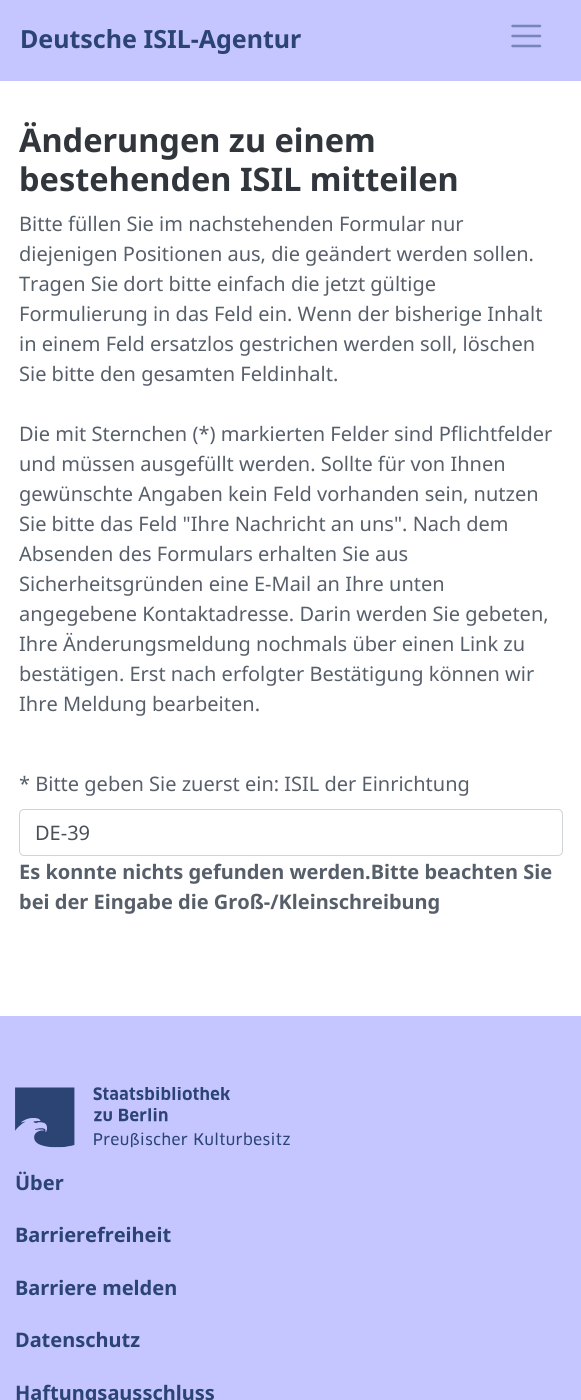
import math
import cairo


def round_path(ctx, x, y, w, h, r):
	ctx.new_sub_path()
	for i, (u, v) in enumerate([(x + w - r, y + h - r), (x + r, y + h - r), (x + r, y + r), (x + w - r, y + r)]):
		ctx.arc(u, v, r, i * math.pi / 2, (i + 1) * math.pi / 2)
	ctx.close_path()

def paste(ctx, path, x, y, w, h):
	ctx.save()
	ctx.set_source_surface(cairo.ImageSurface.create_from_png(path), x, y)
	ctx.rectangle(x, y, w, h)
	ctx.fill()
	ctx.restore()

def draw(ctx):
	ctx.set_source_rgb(1, 1, 1)
	ctx.paint()
	ctx.set_source_rgb(0.773, 0.776, 1)
	ctx.rectangle(0, 0, 581, 81)
	ctx.fill()
	ctx.select_font_face('Noto Sans', cairo.FONT_SLANT_NORMAL, cairo.FONT_WEIGHT_BOLD)
	ctx.set_font_size(25)
	ctx.set_source_rgb(0.169, 0.267, 0.455)
	ctx.move_to(20, 48)
	ctx.show_text('Deutsche ISIL-Agentur')
	ctx.new_path()
	ctx.move_to(512.5, 26)
	ctx.line_to(540, 26)
	ctx.move_to(512.5, 36)
	ctx.line_to(540, 36)
	ctx.move_to(512.5, 46)
	ctx.line_to(540, 46)
	ctx.set_source_rgb(0.471, 0.522, 0.729)
	ctx.set_line_width(2.5)
	ctx.set_line_cap(cairo.LINE_CAP_ROUND)
	ctx.stroke()
	ctx.set_font_size(32.5)
	ctx.set_source_rgb(0.192, 0.212, 0.235)
	ctx.move_to(19, 152)
	ctx.show_text('Änderungen zu einem')
	ctx.move_to(19, 191)
	ctx.show_text('bestehenden ISIL mitteilen')
	ctx.select_font_face('Noto Sans')
	ctx.set_font_size(20)
	ctx.set_source_rgb(0.341, 0.373, 0.416)
	for x, y, s in [
		(19, 231, 'Bitte füllen Sie im nachstehenden Formular nur'),
		(19, 261, 'diejenigen Positionen aus, die geändert werden sollen.'),
		(19, 291, 'Tragen Sie dort bitte einfach die jetzt gültige'),
		(19, 321, 'Formulierung in das Feld ein. Wenn der bisherige Inhalt'),
		(19, 351, 'in einem Feld ersatzlos gestrichen werden soll, löschen'),
		(19, 381, 'Sie bitte den gesamten Feldinhalt.'),
		(19, 441, 'Die mit Sternchen (*) markierten Felder sind Pflichtfelder'),
		(19, 471, 'und müssen ausgefüllt werden. Sollte für von Ihnen'),
		(19, 501, 'gewünschte Angaben kein Feld vorhanden sein, nutzen'),
		(19, 531, 'Sie bitte das Feld "Ihre Nachricht an uns". Nach dem'),
		(19, 561, 'Absenden des Formulars erhalten Sie aus'),
		(19, 591, 'Sicherheitsgründen eine E-Mail an Ihre unten'),
		(19, 621, 'angegebene Kontaktadresse. Darin werden Sie gebeten,'),
		(19, 651, 'Ihre Änderungsmeldung nochmals über einen Link zu'),
		(19, 681, 'bestätigen. Erst nach erfolgter Bestätigung können wir'),
		(19, 711, 'Ihre Meldung bearbeiten.'),
		(19, 791, '* Bitte geben Sie zuerst ein: ISIL der Einrichtung'),
	]:
		ctx.move_to(x, y)
		ctx.show_text(s)
	round_path(ctx, 19.5, 809.5, 543, 46, 4.5)
	ctx.set_source_rgb(0.808, 0.831, 0.855)
	ctx.set_line_width(1)
	ctx.set_line_cap(cairo.LINE_CAP_BUTT)
	ctx.stroke()
	ctx.set_source_rgb(0.286, 0.314, 0.341)
	ctx.move_to(35, 840)
	ctx.show_text('DE-39')
	ctx.select_font_face('Noto Sans', cairo.FONT_SLANT_NORMAL, cairo.FONT_WEIGHT_BOLD)
	ctx.set_source_rgb(0.341, 0.373, 0.416)
	ctx.move_to(19, 879)
	ctx.show_text('Es konnte nichts gefunden werden.Bitte beachten Sie')
	ctx.move_to(19, 909)
	ctx.show_text('bei der Eingabe die Groß-/Kleinschreibung')
	ctx.set_source_rgb(0.773, 0.776, 1)
	ctx.rectangle(0, 1016, 581, 384)
	ctx.fill()
	paste(ctx, 'media/1.png', 15, 1087, 275, 61)
	ctx.set_source_rgb(0.169, 0.267, 0.455)
	for x, y, s in [
		(15, 1190, 'Über'),
		(15, 1242, 'Barrierefreiheit'),
		(15, 1295, 'Barriere melden'),
		(15, 1347, 'Datenschutz'),
		(15, 1400, 'Haftungsausschluss'),
	]:
		ctx.move_to(x, y)
		ctx.show_text(s)


surface = cairo.ImageSurface(cairo.FORMAT_RGB24, 581, 1400)
ctx = cairo.Context(surface)
options = cairo.FontOptions()
options.set_hint_metrics(cairo.HINT_METRICS_OFF)
options.set_hint_style(cairo.HINT_STYLE_NONE)
ctx.set_font_options(options)
ctx.set_miter_limit(4)
draw(ctx)
surface.write_to_png('image.png')
